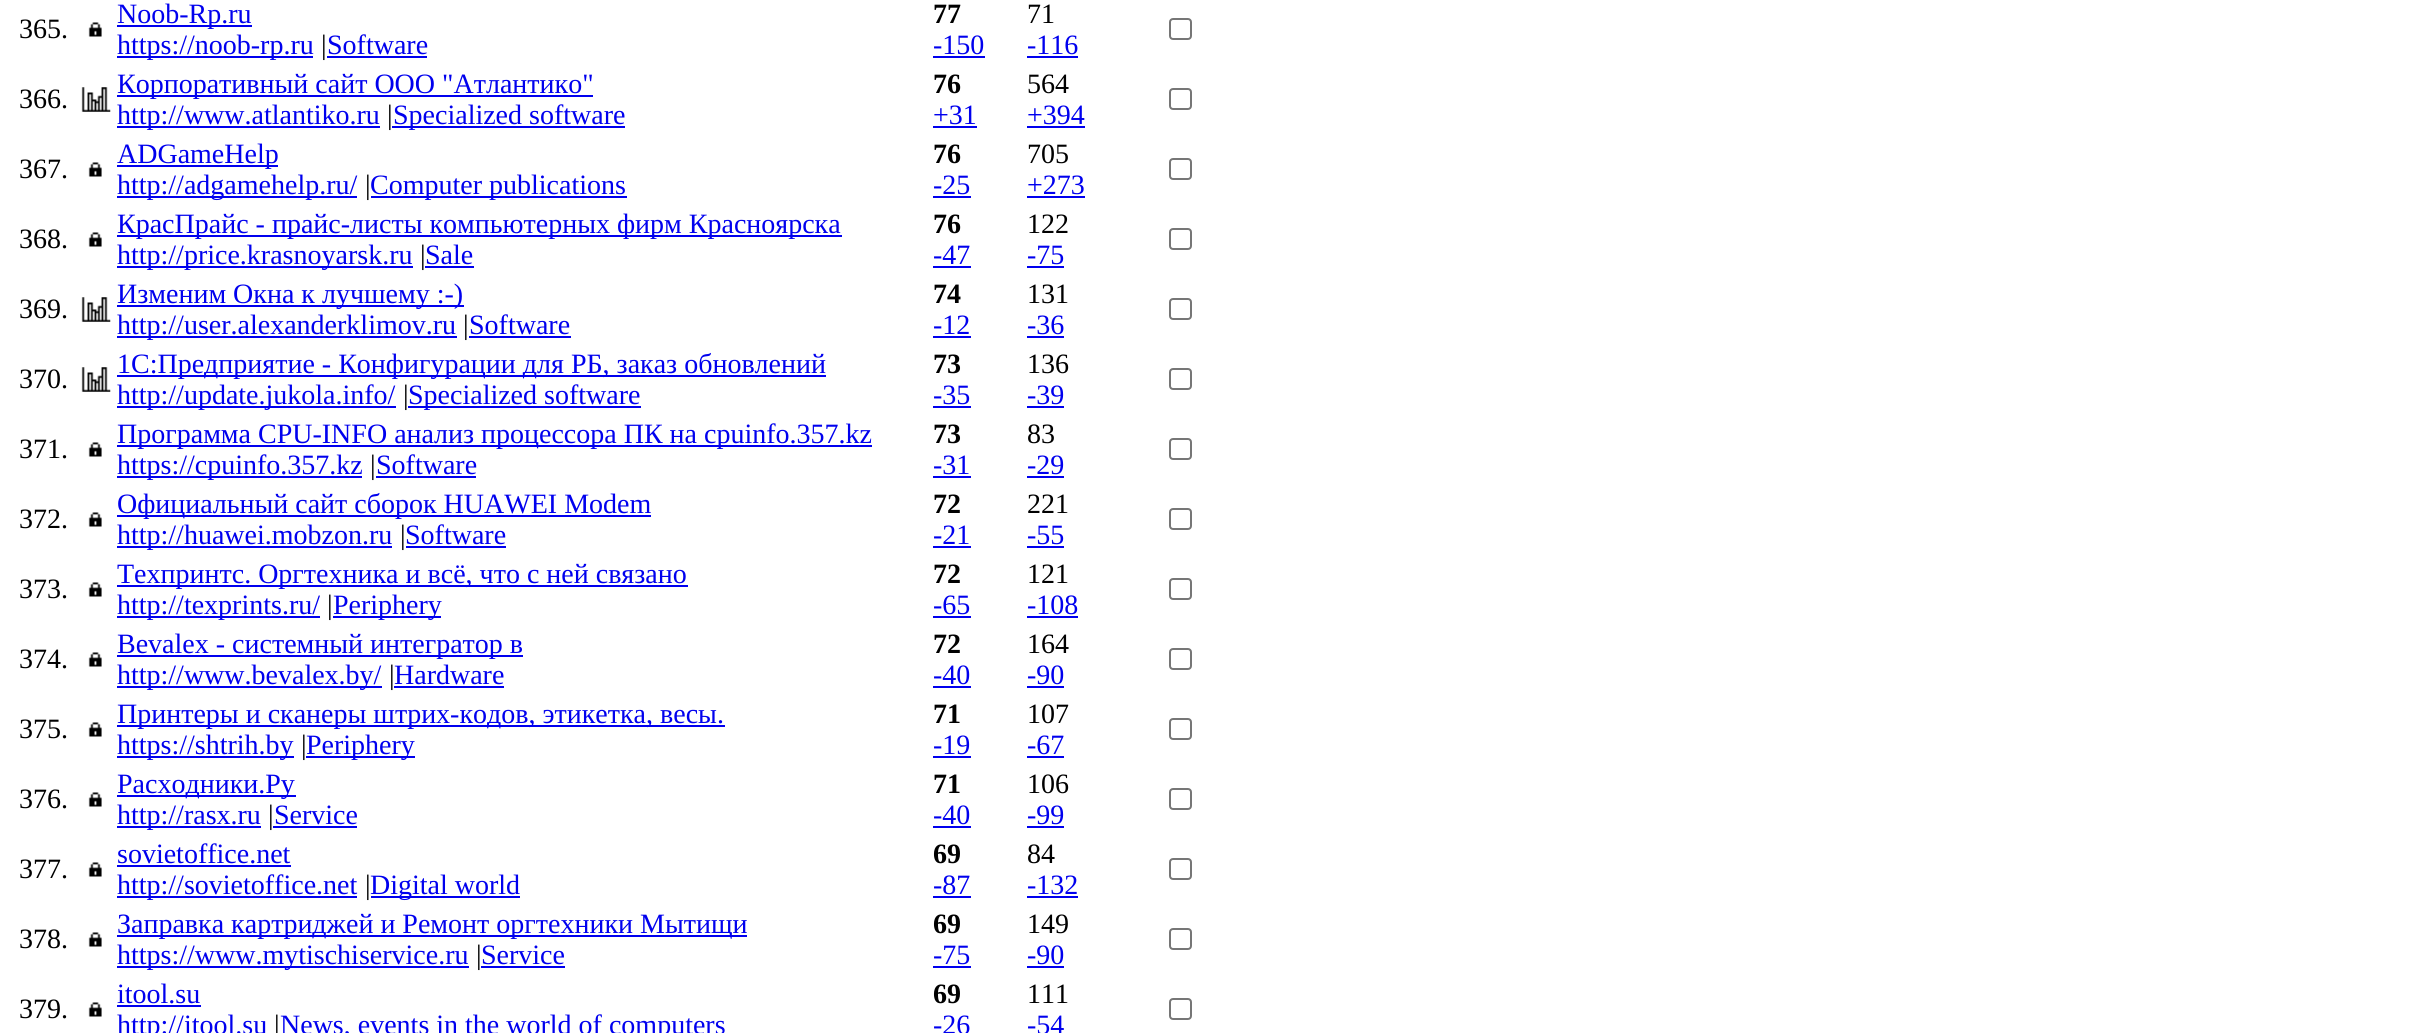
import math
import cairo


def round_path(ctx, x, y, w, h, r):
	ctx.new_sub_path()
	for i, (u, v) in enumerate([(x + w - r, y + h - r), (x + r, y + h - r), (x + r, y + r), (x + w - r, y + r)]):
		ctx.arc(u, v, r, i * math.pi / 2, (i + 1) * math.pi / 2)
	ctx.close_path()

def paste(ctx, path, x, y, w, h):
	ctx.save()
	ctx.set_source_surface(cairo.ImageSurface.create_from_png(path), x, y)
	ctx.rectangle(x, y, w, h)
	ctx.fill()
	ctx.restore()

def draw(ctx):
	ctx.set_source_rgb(1, 1, 1)
	ctx.paint()
	ctx.select_font_face('Liberation Serif')
	ctx.set_font_size(28)
	ctx.set_source_rgb(0, 0, 0)
	ctx.move_to(19, 38)
	ctx.show_text('365.')
	paste(ctx, 'media/1.png', 88, 22, 14, 15)
	ctx.set_source_rgb(0, 0, 0.933)
	ctx.rectangle(117, 25, 135, 2)
	ctx.fill()
	ctx.move_to(117, 23)
	ctx.show_text('Noob-Rp.ru')
	ctx.rectangle(117, 56, 196, 2)
	ctx.fill()
	ctx.move_to(117, 54)
	ctx.show_text('https://noob-rp.ru')
	ctx.set_source_rgb(0, 0, 0)
	ctx.move_to(321, 54)
	ctx.show_text('|')
	ctx.set_source_rgb(0, 0, 0.933)
	ctx.move_to(327, 54)
	ctx.show_text('Software')
	ctx.rectangle(327, 56, 100, 2)
	ctx.fill()
	ctx.select_font_face('Liberation Serif', cairo.FONT_SLANT_NORMAL, cairo.FONT_WEIGHT_BOLD)
	ctx.set_source_rgb(0, 0, 0)
	ctx.move_to(933, 23)
	ctx.show_text('77')
	ctx.select_font_face('Liberation Serif')
	ctx.set_source_rgb(0, 0, 0.933)
	ctx.move_to(933, 54)
	ctx.show_text('-150')
	ctx.rectangle(933, 56, 52, 2)
	ctx.fill()
	ctx.set_source_rgb(0, 0, 0)
	ctx.move_to(1027, 23)
	ctx.show_text('71')
	ctx.set_source_rgb(0, 0, 0.933)
	ctx.move_to(1027, 54)
	ctx.show_text('-116')
	ctx.rectangle(1027, 56, 51, 2)
	ctx.fill()
	round_path(ctx, 1170, 19, 21, 20, 3)
	ctx.set_source_rgb(0.463, 0.463, 0.463)
	ctx.stroke()
	ctx.set_source_rgb(0, 0, 0)
	ctx.move_to(19, 108)
	ctx.show_text('366.')
	paste(ctx, 'media/2.png', 81, 87, 30, 25)
	ctx.set_source_rgb(0, 0, 0.933)
	ctx.rectangle(117, 95, 476, 2)
	ctx.fill()
	ctx.move_to(117, 93)
	ctx.show_text('Корпоративный сайт ООО "Атлантико"')
	ctx.rectangle(117, 126, 263, 2)
	ctx.fill()
	ctx.move_to(117, 124)
	ctx.show_text('http://www.atlantiko.ru')
	ctx.set_source_rgb(0, 0, 0)
	ctx.move_to(387, 124)
	ctx.show_text('|')
	ctx.set_source_rgb(0, 0, 0.933)
	ctx.rectangle(392, 126, 233, 2)
	ctx.fill()
	ctx.move_to(393, 124)
	ctx.show_text('Specialized software')
	ctx.select_font_face('Liberation Serif', cairo.FONT_SLANT_NORMAL, cairo.FONT_WEIGHT_BOLD)
	ctx.set_source_rgb(0, 0, 0)
	ctx.move_to(933, 93)
	ctx.show_text('76')
	ctx.select_font_face('Liberation Serif')
	ctx.set_source_rgb(0, 0, 0.933)
	ctx.move_to(933, 124)
	ctx.show_text('+31')
	ctx.rectangle(933, 126, 44, 2)
	ctx.fill()
	ctx.set_source_rgb(0, 0, 0)
	ctx.move_to(1027, 93)
	ctx.show_text('564')
	ctx.set_source_rgb(0, 0, 0.933)
	ctx.move_to(1027, 124)
	ctx.show_text('+394')
	ctx.rectangle(1027, 126, 58, 2)
	ctx.fill()
	round_path(ctx, 1170, 89, 21, 20, 3)
	ctx.set_source_rgb(0.463, 0.463, 0.463)
	ctx.stroke()
	ctx.set_source_rgb(0, 0, 0)
	ctx.move_to(19, 178)
	ctx.show_text('367.')
	paste(ctx, 'media/1.png', 88, 162, 14, 15)
	ctx.set_source_rgb(0, 0, 0.933)
	ctx.rectangle(117, 165, 161, 2)
	ctx.fill()
	ctx.move_to(117, 163)
	ctx.show_text('ADGameHelp')
	ctx.rectangle(117, 196, 240, 2)
	ctx.fill()
	ctx.move_to(117, 194)
	ctx.show_text('http://adgamehelp.ru/')
	ctx.set_source_rgb(0, 0, 0)
	ctx.move_to(365, 194)
	ctx.show_text('|')
	ctx.set_source_rgb(0, 0, 0.933)
	ctx.rectangle(371, 196, 256, 2)
	ctx.fill()
	ctx.move_to(370, 194)
	ctx.show_text('Computer publications')
	ctx.select_font_face('Liberation Serif', cairo.FONT_SLANT_NORMAL, cairo.FONT_WEIGHT_BOLD)
	ctx.set_source_rgb(0, 0, 0)
	ctx.move_to(933, 163)
	ctx.show_text('76')
	ctx.select_font_face('Liberation Serif')
	ctx.set_source_rgb(0, 0, 0.933)
	ctx.move_to(933, 194)
	ctx.show_text('-25')
	ctx.rectangle(933, 196, 38, 2)
	ctx.fill()
	ctx.set_source_rgb(0, 0, 0)
	ctx.move_to(1027, 163)
	ctx.show_text('705')
	ctx.set_source_rgb(0, 0, 0.933)
	ctx.move_to(1027, 194)
	ctx.show_text('+273')
	ctx.rectangle(1027, 196, 58, 2)
	ctx.fill()
	round_path(ctx, 1170, 159, 21, 20, 3)
	ctx.set_source_rgb(0.463, 0.463, 0.463)
	ctx.stroke()
	ctx.set_source_rgb(0, 0, 0)
	ctx.move_to(19, 248)
	ctx.show_text('368.')
	paste(ctx, 'media/1.png', 88, 232, 14, 15)
	ctx.set_source_rgb(0, 0, 0.933)
	ctx.rectangle(117, 235, 725, 2)
	ctx.fill()
	ctx.move_to(117, 233)
	ctx.show_text('КрасПрайс - прайс-листы компьютерных фирм Красноярска')
	ctx.rectangle(117, 266, 296, 2)
	ctx.fill()
	ctx.move_to(117, 264)
	ctx.show_text('http://price.krasnoyarsk.ru')
	ctx.set_source_rgb(0, 0, 0)
	ctx.move_to(420, 264)
	ctx.show_text('|')
	ctx.set_source_rgb(0, 0, 0.933)
	ctx.move_to(425, 264)
	ctx.show_text('Sale')
	ctx.rectangle(425, 266, 49, 2)
	ctx.fill()
	ctx.select_font_face('Liberation Serif', cairo.FONT_SLANT_NORMAL, cairo.FONT_WEIGHT_BOLD)
	ctx.set_source_rgb(0, 0, 0)
	ctx.move_to(933, 233)
	ctx.show_text('76')
	ctx.select_font_face('Liberation Serif')
	ctx.set_source_rgb(0, 0, 0.933)
	ctx.move_to(933, 264)
	ctx.show_text('-47')
	ctx.rectangle(933, 266, 38, 2)
	ctx.fill()
	ctx.set_source_rgb(0, 0, 0)
	ctx.move_to(1027, 233)
	ctx.show_text('122')
	ctx.set_source_rgb(0, 0, 0.933)
	ctx.move_to(1027, 264)
	ctx.show_text('-75')
	ctx.rectangle(1027, 266, 37, 2)
	ctx.fill()
	round_path(ctx, 1170, 229, 21, 20, 3)
	ctx.set_source_rgb(0.463, 0.463, 0.463)
	ctx.stroke()
	ctx.set_source_rgb(0, 0, 0)
	ctx.move_to(19, 318)
	ctx.show_text('369.')
	paste(ctx, 'media/2.png', 81, 297, 30, 25)
	ctx.set_source_rgb(0, 0, 0.933)
	ctx.rectangle(117, 305, 347, 2)
	ctx.fill()
	ctx.move_to(117, 303)
	ctx.show_text('Изменим Окна к лучшему :-)')
	ctx.rectangle(117, 336, 340, 2)
	ctx.fill()
	ctx.move_to(117, 334)
	ctx.show_text('http://user.alexanderklimov.ru')
	ctx.set_source_rgb(0, 0, 0)
	ctx.move_to(463, 334)
	ctx.show_text('|')
	ctx.set_source_rgb(0, 0, 0.933)
	ctx.move_to(469, 334)
	ctx.show_text('Software')
	ctx.rectangle(469, 336, 102, 2)
	ctx.fill()
	ctx.select_font_face('Liberation Serif', cairo.FONT_SLANT_NORMAL, cairo.FONT_WEIGHT_BOLD)
	ctx.set_source_rgb(0, 0, 0)
	ctx.move_to(933, 303)
	ctx.show_text('74')
	ctx.select_font_face('Liberation Serif')
	ctx.set_source_rgb(0, 0, 0.933)
	ctx.move_to(933, 334)
	ctx.show_text('-12')
	ctx.rectangle(933, 336, 38, 2)
	ctx.fill()
	ctx.set_source_rgb(0, 0, 0)
	ctx.move_to(1027, 303)
	ctx.show_text('131')
	ctx.set_source_rgb(0, 0, 0.933)
	ctx.move_to(1027, 334)
	ctx.show_text('-36')
	ctx.rectangle(1027, 336, 37, 2)
	ctx.fill()
	round_path(ctx, 1170, 299, 21, 20, 3)
	ctx.set_source_rgb(0.463, 0.463, 0.463)
	ctx.stroke()
	ctx.set_source_rgb(0, 0, 0)
	ctx.move_to(19, 388)
	ctx.show_text('370.')
	paste(ctx, 'media/2.png', 81, 367, 30, 25)
	ctx.set_source_rgb(0, 0, 0.933)
	ctx.rectangle(117, 375, 709, 2)
	ctx.fill()
	ctx.move_to(117, 373)
	ctx.show_text('1С:Предприятие - Конфигурации для РБ, заказ обновлений')
	ctx.rectangle(117, 406, 279, 2)
	ctx.fill()
	ctx.move_to(117, 404)
	ctx.show_text('http://update.jukola.info/')
	ctx.set_source_rgb(0, 0, 0)
	ctx.move_to(403, 404)
	ctx.show_text('|')
	ctx.set_source_rgb(0, 0, 0.933)
	ctx.rectangle(408, 406, 233, 2)
	ctx.fill()
	ctx.move_to(408, 404)
	ctx.show_text('Specialized software')
	ctx.select_font_face('Liberation Serif', cairo.FONT_SLANT_NORMAL, cairo.FONT_WEIGHT_BOLD)
	ctx.set_source_rgb(0, 0, 0)
	ctx.move_to(933, 373)
	ctx.show_text('73')
	ctx.select_font_face('Liberation Serif')
	ctx.set_source_rgb(0, 0, 0.933)
	ctx.move_to(933, 404)
	ctx.show_text('-35')
	ctx.rectangle(933, 406, 38, 2)
	ctx.fill()
	ctx.set_source_rgb(0, 0, 0)
	ctx.move_to(1027, 373)
	ctx.show_text('136')
	ctx.set_source_rgb(0, 0, 0.933)
	ctx.move_to(1027, 404)
	ctx.show_text('-39')
	ctx.rectangle(1027, 406, 37, 2)
	ctx.fill()
	round_path(ctx, 1170, 369, 21, 20, 3)
	ctx.set_source_rgb(0.463, 0.463, 0.463)
	ctx.stroke()
	ctx.set_source_rgb(0, 0, 0)
	ctx.move_to(19, 458)
	ctx.show_text('371.')
	paste(ctx, 'media/1.png', 88, 442, 14, 15)
	ctx.set_source_rgb(0, 0, 0.933)
	ctx.rectangle(117, 445, 755, 2)
	ctx.fill()
	ctx.move_to(117, 443)
	ctx.show_text('Программа CPU-INFO анализ процессора ПК на cpuinfo.357.kz')
	ctx.rectangle(117, 476, 245, 2)
	ctx.fill()
	ctx.move_to(117, 474)
	ctx.show_text('https://cpuinfo.357.kz')
	ctx.set_source_rgb(0, 0, 0)
	ctx.move_to(370, 474)
	ctx.show_text('|')
	ctx.set_source_rgb(0, 0, 0.933)
	ctx.move_to(376, 474)
	ctx.show_text('Software')
	ctx.rectangle(376, 476, 100, 2)
	ctx.fill()
	ctx.select_font_face('Liberation Serif', cairo.FONT_SLANT_NORMAL, cairo.FONT_WEIGHT_BOLD)
	ctx.set_source_rgb(0, 0, 0)
	ctx.move_to(933, 443)
	ctx.show_text('73')
	ctx.select_font_face('Liberation Serif')
	ctx.set_source_rgb(0, 0, 0.933)
	ctx.move_to(933, 474)
	ctx.show_text('-31')
	ctx.rectangle(933, 476, 38, 2)
	ctx.fill()
	ctx.set_source_rgb(0, 0, 0)
	ctx.move_to(1027, 443)
	ctx.show_text('83')
	ctx.set_source_rgb(0, 0, 0.933)
	ctx.move_to(1027, 474)
	ctx.show_text('-29')
	ctx.rectangle(1027, 476, 37, 2)
	ctx.fill()
	round_path(ctx, 1170, 439, 21, 20, 3)
	ctx.set_source_rgb(0.463, 0.463, 0.463)
	ctx.stroke()
	ctx.set_source_rgb(0, 0, 0)
	ctx.move_to(19, 528)
	ctx.show_text('372.')
	paste(ctx, 'media/1.png', 88, 512, 14, 15)
	ctx.set_source_rgb(0, 0, 0.933)
	ctx.rectangle(117, 515, 534, 2)
	ctx.fill()
	ctx.move_to(117, 513)
	ctx.show_text('Официальный сайт сборок HUAWEI Modem')
	ctx.rectangle(117, 546, 275, 2)
	ctx.fill()
	ctx.move_to(117, 544)
	ctx.show_text('http://huawei.mobzon.ru')
	ctx.set_source_rgb(0, 0, 0)
	ctx.move_to(400, 544)
	ctx.show_text('|')
	ctx.set_source_rgb(0, 0, 0.933)
	ctx.move_to(405, 544)
	ctx.show_text('Software')
	ctx.rectangle(406, 546, 100, 2)
	ctx.fill()
	ctx.select_font_face('Liberation Serif', cairo.FONT_SLANT_NORMAL, cairo.FONT_WEIGHT_BOLD)
	ctx.set_source_rgb(0, 0, 0)
	ctx.move_to(933, 513)
	ctx.show_text('72')
	ctx.select_font_face('Liberation Serif')
	ctx.set_source_rgb(0, 0, 0.933)
	ctx.move_to(933, 544)
	ctx.show_text('-21')
	ctx.rectangle(933, 546, 38, 2)
	ctx.fill()
	ctx.set_source_rgb(0, 0, 0)
	ctx.move_to(1027, 513)
	ctx.show_text('221')
	ctx.set_source_rgb(0, 0, 0.933)
	ctx.move_to(1027, 544)
	ctx.show_text('-55')
	ctx.rectangle(1027, 546, 37, 2)
	ctx.fill()
	round_path(ctx, 1170, 509, 21, 20, 3)
	ctx.set_source_rgb(0.463, 0.463, 0.463)
	ctx.stroke()
	ctx.set_source_rgb(0, 0, 0)
	ctx.move_to(19, 598)
	ctx.show_text('373.')
	paste(ctx, 'media/1.png', 88, 582, 14, 15)
	ctx.set_source_rgb(0, 0, 0.933)
	ctx.rectangle(117, 585, 571, 2)
	ctx.fill()
	ctx.move_to(117, 583)
	ctx.show_text('Техпринтс. Оргтехника и всё, что с ней связано')
	ctx.rectangle(117, 616, 203, 2)
	ctx.fill()
	ctx.move_to(117, 614)
	ctx.show_text('http://texprints.ru/')
	ctx.set_source_rgb(0, 0, 0)
	ctx.move_to(327, 614)
	ctx.show_text('|')
	ctx.set_source_rgb(0, 0, 0.933)
	ctx.rectangle(333, 616, 108, 2)
	ctx.fill()
	ctx.move_to(333, 614)
	ctx.show_text('Periphery')
	ctx.select_font_face('Liberation Serif', cairo.FONT_SLANT_NORMAL, cairo.FONT_WEIGHT_BOLD)
	ctx.set_source_rgb(0, 0, 0)
	ctx.move_to(933, 583)
	ctx.show_text('72')
	ctx.select_font_face('Liberation Serif')
	ctx.set_source_rgb(0, 0, 0.933)
	ctx.move_to(933, 614)
	ctx.show_text('-65')
	ctx.rectangle(933, 616, 38, 2)
	ctx.fill()
	ctx.set_source_rgb(0, 0, 0)
	ctx.move_to(1027, 583)
	ctx.show_text('121')
	ctx.set_source_rgb(0, 0, 0.933)
	ctx.move_to(1027, 614)
	ctx.show_text('-108')
	ctx.rectangle(1027, 616, 51, 2)
	ctx.fill()
	round_path(ctx, 1170, 579, 21, 20, 3)
	ctx.set_source_rgb(0.463, 0.463, 0.463)
	ctx.stroke()
	ctx.set_source_rgb(0, 0, 0)
	ctx.move_to(19, 668)
	ctx.show_text('374.')
	paste(ctx, 'media/1.png', 88, 652, 14, 15)
	ctx.set_source_rgb(0, 0, 0.933)
	ctx.rectangle(117, 655, 406, 2)
	ctx.fill()
	ctx.move_to(117, 653)
	ctx.show_text('Bevalex - системный интегратор в')
	ctx.rectangle(117, 686, 265, 2)
	ctx.fill()
	ctx.move_to(117, 684)
	ctx.show_text('http://www.bevalex.by/')
	ctx.set_source_rgb(0, 0, 0)
	ctx.move_to(389, 684)
	ctx.show_text('|')
	ctx.set_source_rgb(0, 0, 0.933)
	ctx.move_to(394, 684)
	ctx.show_text('Hardware')
	ctx.rectangle(394, 686, 110, 2)
	ctx.fill()
	ctx.select_font_face('Liberation Serif', cairo.FONT_SLANT_NORMAL, cairo.FONT_WEIGHT_BOLD)
	ctx.set_source_rgb(0, 0, 0)
	ctx.move_to(933, 653)
	ctx.show_text('72')
	ctx.select_font_face('Liberation Serif')
	ctx.set_source_rgb(0, 0, 0.933)
	ctx.move_to(933, 684)
	ctx.show_text('-40')
	ctx.rectangle(933, 686, 38, 2)
	ctx.fill()
	ctx.set_source_rgb(0, 0, 0)
	ctx.move_to(1027, 653)
	ctx.show_text('164')
	ctx.set_source_rgb(0, 0, 0.933)
	ctx.move_to(1027, 684)
	ctx.show_text('-90')
	ctx.rectangle(1027, 686, 37, 2)
	ctx.fill()
	round_path(ctx, 1170, 649, 21, 20, 3)
	ctx.set_source_rgb(0.463, 0.463, 0.463)
	ctx.stroke()
	ctx.set_source_rgb(0, 0, 0)
	ctx.move_to(19, 738)
	ctx.show_text('375.')
	paste(ctx, 'media/1.png', 88, 722, 14, 15)
	ctx.set_source_rgb(0, 0, 0.933)
	ctx.rectangle(117, 725, 608, 2)
	ctx.fill()
	ctx.move_to(117, 723)
	ctx.show_text('Принтеры и сканеры штрих-кодов, этикетка, весы.')
	ctx.rectangle(117, 756, 177, 2)
	ctx.fill()
	ctx.move_to(117, 754)
	ctx.show_text('https://shtrih.by')
	ctx.set_source_rgb(0, 0, 0)
	ctx.move_to(301, 754)
	ctx.show_text('|')
	ctx.set_source_rgb(0, 0, 0.933)
	ctx.rectangle(306, 756, 109, 2)
	ctx.fill()
	ctx.move_to(306, 754)
	ctx.show_text('Periphery')
	ctx.select_font_face('Liberation Serif', cairo.FONT_SLANT_NORMAL, cairo.FONT_WEIGHT_BOLD)
	ctx.set_source_rgb(0, 0, 0)
	ctx.move_to(933, 723)
	ctx.show_text('71')
	ctx.select_font_face('Liberation Serif')
	ctx.set_source_rgb(0, 0, 0.933)
	ctx.move_to(933, 754)
	ctx.show_text('-19')
	ctx.rectangle(933, 756, 38, 2)
	ctx.fill()
	ctx.set_source_rgb(0, 0, 0)
	ctx.move_to(1027, 723)
	ctx.show_text('107')
	ctx.set_source_rgb(0, 0, 0.933)
	ctx.move_to(1027, 754)
	ctx.show_text('-67')
	ctx.rectangle(1027, 756, 37, 2)
	ctx.fill()
	round_path(ctx, 1170, 719, 21, 20, 3)
	ctx.set_source_rgb(0.463, 0.463, 0.463)
	ctx.stroke()
	ctx.set_source_rgb(0, 0, 0)
	ctx.move_to(19, 808)
	ctx.show_text('376.')
	paste(ctx, 'media/1.png', 88, 792, 14, 15)
	ctx.set_source_rgb(0, 0, 0.933)
	ctx.rectangle(117, 795, 179, 2)
	ctx.fill()
	ctx.move_to(117, 793)
	ctx.show_text('Расходники.Ру')
	ctx.rectangle(117, 826, 144, 2)
	ctx.fill()
	ctx.move_to(117, 824)
	ctx.show_text('http://rasx.ru')
	ctx.set_source_rgb(0, 0, 0)
	ctx.move_to(268, 824)
	ctx.show_text('|')
	ctx.set_source_rgb(0, 0, 0.933)
	ctx.move_to(274, 824)
	ctx.show_text('Service')
	ctx.rectangle(273, 826, 84, 2)
	ctx.fill()
	ctx.select_font_face('Liberation Serif', cairo.FONT_SLANT_NORMAL, cairo.FONT_WEIGHT_BOLD)
	ctx.set_source_rgb(0, 0, 0)
	ctx.move_to(933, 793)
	ctx.show_text('71')
	ctx.select_font_face('Liberation Serif')
	ctx.set_source_rgb(0, 0, 0.933)
	ctx.move_to(933, 824)
	ctx.show_text('-40')
	ctx.rectangle(933, 826, 38, 2)
	ctx.fill()
	ctx.set_source_rgb(0, 0, 0)
	ctx.move_to(1027, 793)
	ctx.show_text('106')
	ctx.set_source_rgb(0, 0, 0.933)
	ctx.move_to(1027, 824)
	ctx.show_text('-99')
	ctx.rectangle(1027, 826, 37, 2)
	ctx.fill()
	round_path(ctx, 1170, 789, 21, 20, 3)
	ctx.set_source_rgb(0.463, 0.463, 0.463)
	ctx.stroke()
	ctx.set_source_rgb(0, 0, 0)
	ctx.move_to(19, 878)
	ctx.show_text('377.')
	paste(ctx, 'media/1.png', 88, 862, 14, 15)
	ctx.set_source_rgb(0, 0, 0.933)
	ctx.move_to(117, 863)
	ctx.show_text('sovietoffice.net')
	ctx.rectangle(117, 865, 174, 2)
	ctx.fill()
	ctx.rectangle(117, 896, 240, 2)
	ctx.fill()
	ctx.move_to(117, 894)
	ctx.show_text('http://sovietoffice.net')
	ctx.set_source_rgb(0, 0, 0)
	ctx.move_to(365, 894)
	ctx.show_text('|')
	ctx.set_source_rgb(0, 0, 0.933)
	ctx.rectangle(371, 896, 149, 2)
	ctx.fill()
	ctx.move_to(370, 894)
	ctx.show_text('Digital world')
	ctx.select_font_face('Liberation Serif', cairo.FONT_SLANT_NORMAL, cairo.FONT_WEIGHT_BOLD)
	ctx.set_source_rgb(0, 0, 0)
	ctx.move_to(933, 863)
	ctx.show_text('69')
	ctx.select_font_face('Liberation Serif')
	ctx.set_source_rgb(0, 0, 0.933)
	ctx.move_to(933, 894)
	ctx.show_text('-87')
	ctx.rectangle(933, 896, 38, 2)
	ctx.fill()
	ctx.set_source_rgb(0, 0, 0)
	ctx.move_to(1027, 863)
	ctx.show_text('84')
	ctx.set_source_rgb(0, 0, 0.933)
	ctx.move_to(1027, 894)
	ctx.show_text('-132')
	ctx.rectangle(1027, 896, 51, 2)
	ctx.fill()
	round_path(ctx, 1170, 859, 21, 20, 3)
	ctx.set_source_rgb(0.463, 0.463, 0.463)
	ctx.stroke()
	ctx.set_source_rgb(0, 0, 0)
	ctx.move_to(19, 948)
	ctx.show_text('378.')
	paste(ctx, 'media/1.png', 88, 932, 14, 15)
	ctx.set_source_rgb(0, 0, 0.933)
	ctx.rectangle(117, 935, 630, 2)
	ctx.fill()
	ctx.move_to(117, 933)
	ctx.show_text('Заправка картриджей и Ремонт оргтехники Мытищи')
	ctx.rectangle(117, 966, 352, 2)
	ctx.fill()
	ctx.move_to(117, 964)
	ctx.show_text('https://www.mytischiservice.ru')
	ctx.set_source_rgb(0, 0, 0)
	ctx.move_to(476, 964)
	ctx.show_text('|')
	ctx.set_source_rgb(0, 0, 0.933)
	ctx.move_to(481, 964)
	ctx.show_text('Service')
	ctx.rectangle(481, 966, 84, 2)
	ctx.fill()
	ctx.select_font_face('Liberation Serif', cairo.FONT_SLANT_NORMAL, cairo.FONT_WEIGHT_BOLD)
	ctx.set_source_rgb(0, 0, 0)
	ctx.move_to(933, 933)
	ctx.show_text('69')
	ctx.select_font_face('Liberation Serif')
	ctx.set_source_rgb(0, 0, 0.933)
	ctx.move_to(933, 964)
	ctx.show_text('-75')
	ctx.rectangle(933, 966, 38, 2)
	ctx.fill()
	ctx.set_source_rgb(0, 0, 0)
	ctx.move_to(1027, 933)
	ctx.show_text('149')
	ctx.set_source_rgb(0, 0, 0.933)
	ctx.move_to(1027, 964)
	ctx.show_text('-90')
	ctx.rectangle(1027, 966, 37, 2)
	ctx.fill()
	round_path(ctx, 1170, 929, 21, 20, 3)
	ctx.set_source_rgb(0.463, 0.463, 0.463)
	ctx.stroke()
	ctx.set_source_rgb(0, 0, 0)
	ctx.move_to(19, 1018)
	ctx.show_text('379.')
	paste(ctx, 'media/1.png', 88, 1002, 14, 15)
	ctx.set_source_rgb(0, 0, 0.933)
	ctx.move_to(117, 1003)
	ctx.show_text('itool.su')
	ctx.rectangle(117, 1005, 84, 2)
	ctx.fill()
	ctx.move_to(117, 1034)
	ctx.show_text('http://itool.su')
	ctx.set_source_rgb(0, 0, 0)
	ctx.move_to(274, 1034)
	ctx.show_text('|')
	ctx.set_source_rgb(0, 0, 0.933)
	ctx.move_to(280, 1034)
	ctx.show_text('News, events in the world of computers')
	ctx.select_font_face('Liberation Serif', cairo.FONT_SLANT_NORMAL, cairo.FONT_WEIGHT_BOLD)
	ctx.set_source_rgb(0, 0, 0)
	ctx.move_to(933, 1003)
	ctx.show_text('69')
	ctx.select_font_face('Liberation Serif')
	ctx.set_source_rgb(0, 0, 0.933)
	ctx.move_to(933, 1034)
	ctx.show_text('-26')
	ctx.set_source_rgb(0, 0, 0)
	ctx.move_to(1027, 1003)
	ctx.show_text('111')
	ctx.set_source_rgb(0, 0, 0.933)
	ctx.move_to(1027, 1034)
	ctx.show_text('-54')
	round_path(ctx, 1170, 999, 21, 20, 3)
	ctx.set_source_rgb(0.463, 0.463, 0.463)
	ctx.stroke()


surface = cairo.ImageSurface(cairo.FORMAT_RGB24, 2431, 1033)
ctx = cairo.Context(surface)
options = cairo.FontOptions()
options.set_hint_metrics(cairo.HINT_METRICS_OFF)
options.set_hint_style(cairo.HINT_STYLE_NONE)
ctx.set_font_options(options)
ctx.set_miter_limit(4)
draw(ctx)
surface.write_to_png('image.png')
